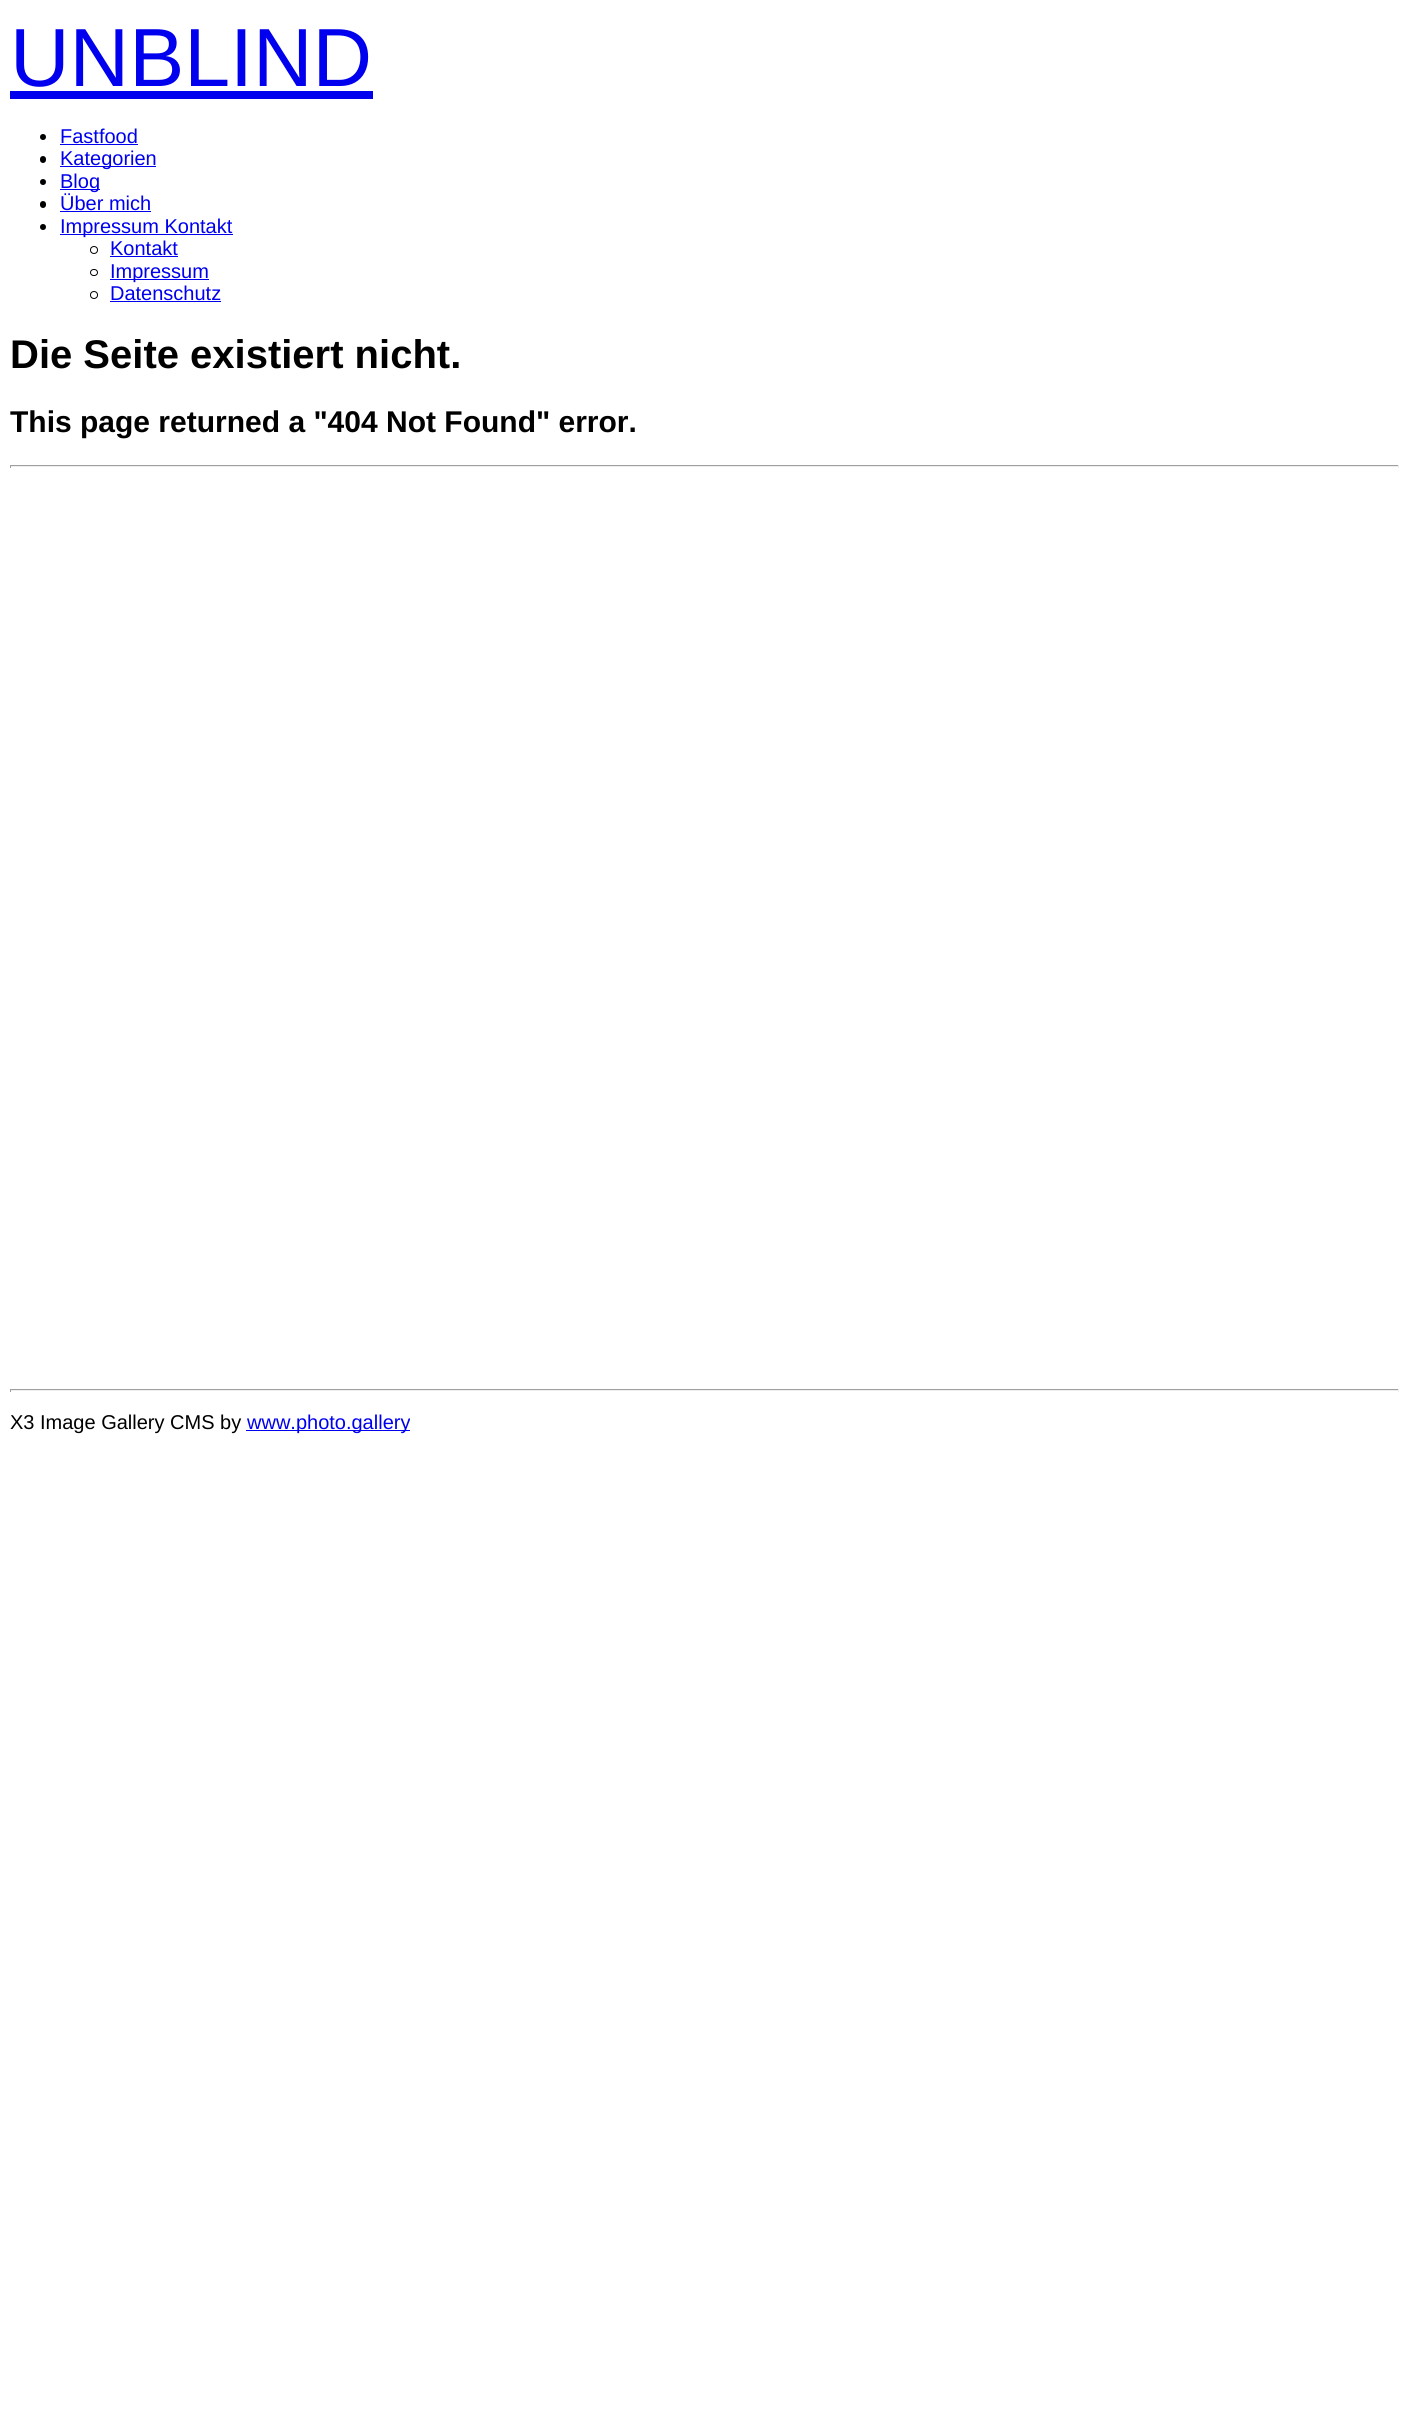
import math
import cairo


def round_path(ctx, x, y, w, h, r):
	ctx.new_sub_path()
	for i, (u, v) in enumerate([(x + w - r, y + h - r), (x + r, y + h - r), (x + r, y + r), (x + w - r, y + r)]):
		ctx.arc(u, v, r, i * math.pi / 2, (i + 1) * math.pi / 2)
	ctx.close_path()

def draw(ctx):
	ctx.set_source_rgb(1, 1, 1)
	ctx.paint()
	ctx.select_font_face('Liberation Sans')
	ctx.set_font_size(82.5)
	ctx.set_source_rgb(0, 0, 0.933)
	ctx.move_to(10, 86)
	ctx.show_text('UNBLIND')
	ctx.rectangle(10, 91, 363, 8)
	ctx.fill()
	ctx.set_source_rgb(0, 0, 0)
	ctx.arc(43, 137, 3, 0, 2 * math.pi)
	ctx.fill()
	ctx.set_font_size(20)
	ctx.set_source_rgb(0, 0, 0.933)
	ctx.move_to(60, 143)
	ctx.show_text('Fastfood')
	ctx.rectangle(60, 144, 78, 1)
	ctx.fill()
	ctx.set_source_rgb(0, 0, 0)
	round_path(ctx, 40, 156, 6, 7, 3)
	ctx.fill()
	ctx.set_source_rgb(0, 0, 0.933)
	ctx.rectangle(60, 166, 96, 1)
	ctx.fill()
	ctx.move_to(60, 165)
	ctx.show_text('Kategorien')
	ctx.set_source_rgb(0, 0, 0)
	ctx.new_path()
	ctx.arc(43, 182, 3, 0, 2 * math.pi)
	ctx.fill()
	ctx.set_source_rgb(0, 0, 0.933)
	ctx.rectangle(60, 189, 40, 1)
	ctx.fill()
	ctx.move_to(60, 188)
	ctx.show_text('Blog')
	ctx.set_source_rgb(0, 0, 0)
	round_path(ctx, 40, 201, 6, 7, 3)
	ctx.fill()
	ctx.set_source_rgb(0, 0, 0.933)
	ctx.move_to(60, 210)
	ctx.show_text('Über mich')
	ctx.rectangle(60, 211, 91, 1)
	ctx.fill()
	ctx.set_source_rgb(0, 0, 0)
	ctx.arc(43, 227, 3, 0, 2 * math.pi)
	ctx.fill()
	ctx.set_source_rgb(0, 0, 0.933)
	ctx.rectangle(60, 234, 173, 1)
	ctx.fill()
	ctx.move_to(60, 233)
	ctx.show_text('Impressum Kontakt')
	ctx.new_path()
	ctx.arc(94, 250, 3.5, 0, 2 * math.pi)
	ctx.set_source_rgb(0, 0, 0)
	ctx.set_line_width(1)
	ctx.stroke()
	ctx.set_source_rgb(0, 0, 0.933)
	ctx.move_to(110, 255)
	ctx.show_text('Kontakt')
	ctx.rectangle(110, 256, 68, 1)
	ctx.fill()
	round_path(ctx, 90.5, 269.5, 7, 6, 3)
	ctx.set_source_rgb(0, 0, 0)
	ctx.stroke()
	ctx.set_source_rgb(0, 0, 0.933)
	ctx.rectangle(110, 279, 99, 1)
	ctx.fill()
	ctx.move_to(110, 278)
	ctx.show_text('Impressum')
	ctx.new_path()
	ctx.arc(94, 295, 3.5, 0, 2 * math.pi)
	ctx.set_source_rgb(0, 0, 0)
	ctx.stroke()
	ctx.set_source_rgb(0, 0, 0.933)
	ctx.move_to(110, 300)
	ctx.show_text('Datenschutz')
	ctx.rectangle(110, 301, 111, 1)
	ctx.fill()
	ctx.select_font_face('Liberation Sans', cairo.FONT_SLANT_NORMAL, cairo.FONT_WEIGHT_BOLD)
	ctx.set_font_size(40)
	ctx.set_source_rgb(0, 0, 0)
	ctx.move_to(10, 368)
	ctx.show_text('Die Seite existiert nicht.')
	ctx.set_font_size(30)
	ctx.move_to(10, 432)
	ctx.show_text('This page returned a "404 Not Found" error.')
	ctx.set_source_rgb(0.624, 0.624, 0.624)
	ctx.rectangle(10, 465, 1389, 1)
	ctx.fill()
	ctx.set_source_rgb(0.933, 0.933, 0.933)
	ctx.rectangle(1398, 465, 1, 3)
	ctx.rectangle(10, 466, 1389, 1)
	ctx.fill()
	ctx.set_source_rgb(0.624, 0.624, 0.624)
	ctx.rectangle(10, 465, 1, 3)
	ctx.rectangle(10, 1389, 1389, 1)
	ctx.fill()
	ctx.set_source_rgb(0.933, 0.933, 0.933)
	ctx.rectangle(1398, 1389, 1, 3)
	ctx.rectangle(10, 1390, 1389, 1)
	ctx.fill()
	ctx.set_source_rgb(0.624, 0.624, 0.624)
	ctx.rectangle(10, 1389, 1, 3)
	ctx.fill()
	ctx.select_font_face('Liberation Sans')
	ctx.set_font_size(20)
	ctx.set_source_rgb(0, 0, 0)
	ctx.move_to(10, 1429)
	ctx.show_text('X3 Image Gallery CMS by')
	ctx.set_source_rgb(0, 0, 0.933)
	ctx.rectangle(246, 1430, 164, 1)
	ctx.fill()
	ctx.move_to(247, 1429)
	ctx.show_text('www.photo.gallery')


surface = cairo.ImageSurface(cairo.FORMAT_RGB24, 1408, 2436)
ctx = cairo.Context(surface)
options = cairo.FontOptions()
options.set_hint_metrics(cairo.HINT_METRICS_OFF)
options.set_hint_style(cairo.HINT_STYLE_NONE)
ctx.set_font_options(options)
ctx.set_miter_limit(4)
draw(ctx)
surface.write_to_png('image.png')
